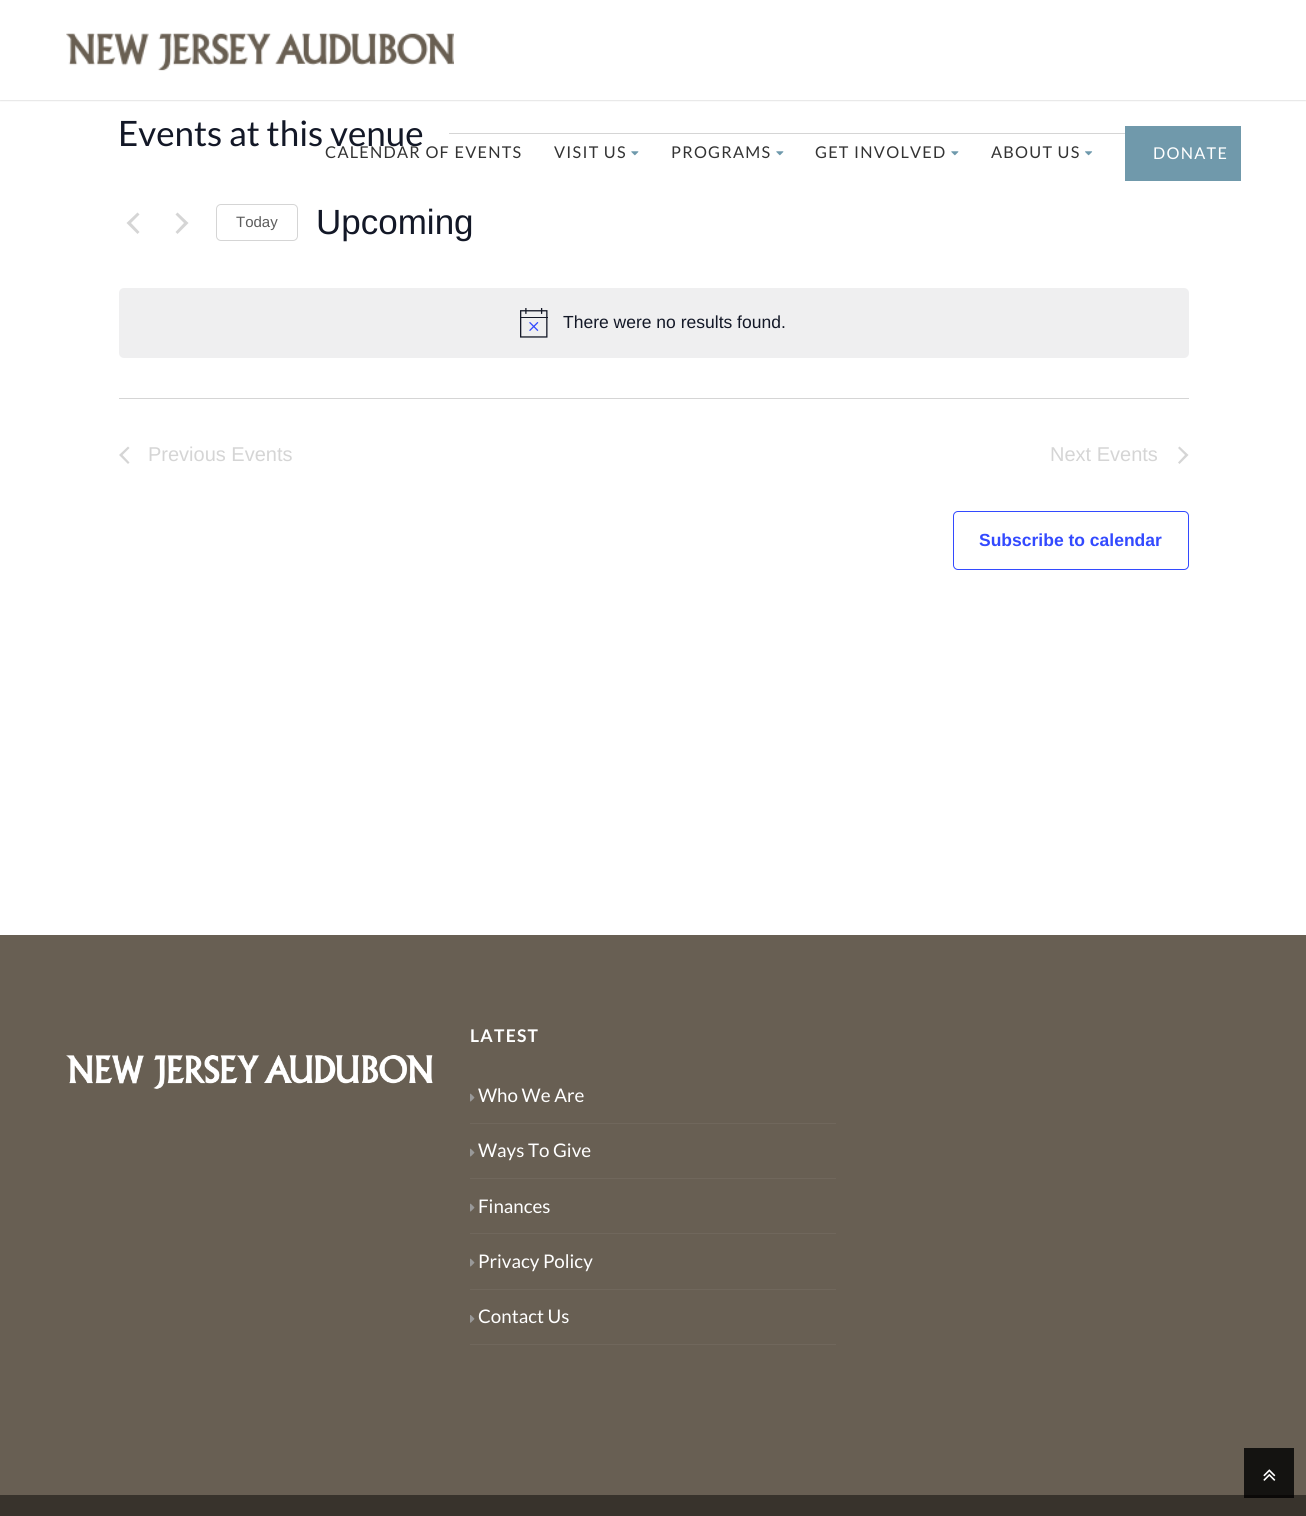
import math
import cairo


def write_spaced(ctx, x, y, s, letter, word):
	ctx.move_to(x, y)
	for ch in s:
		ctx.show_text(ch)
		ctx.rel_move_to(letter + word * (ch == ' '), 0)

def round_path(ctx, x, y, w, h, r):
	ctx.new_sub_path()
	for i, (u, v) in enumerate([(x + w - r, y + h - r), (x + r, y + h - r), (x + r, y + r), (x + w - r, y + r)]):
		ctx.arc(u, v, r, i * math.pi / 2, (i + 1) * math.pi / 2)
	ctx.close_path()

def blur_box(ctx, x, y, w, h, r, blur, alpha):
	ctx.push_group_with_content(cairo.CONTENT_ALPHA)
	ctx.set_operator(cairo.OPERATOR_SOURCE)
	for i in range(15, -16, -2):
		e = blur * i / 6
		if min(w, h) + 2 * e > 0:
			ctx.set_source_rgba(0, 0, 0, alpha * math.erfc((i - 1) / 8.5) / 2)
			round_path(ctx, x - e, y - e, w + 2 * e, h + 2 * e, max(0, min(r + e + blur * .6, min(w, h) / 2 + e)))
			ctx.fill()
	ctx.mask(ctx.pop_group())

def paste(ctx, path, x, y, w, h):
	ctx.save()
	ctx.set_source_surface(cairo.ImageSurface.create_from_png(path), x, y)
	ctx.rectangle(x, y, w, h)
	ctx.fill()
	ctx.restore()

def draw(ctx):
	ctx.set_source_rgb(1, 1, 1)
	ctx.paint()
	ctx.select_font_face('Lato')
	ctx.set_font_size(35)
	ctx.set_source_rgb(0.078, 0.094, 0.153)
	ctx.move_to(118, 146)
	ctx.show_text('Events at this venue')
	ctx.set_source_rgb(0.835, 0.835, 0.835)
	ctx.rectangle(449, 133, 676, 1)
	ctx.fill()
	ctx.new_path()
	ctx.move_to(139.5, 232)
	ctx.line_to(137.5, 234)
	ctx.line_to(126.5, 223)
	ctx.line_to(137.5, 212.5)
	ctx.line_to(139.5, 214.5)
	ctx.line_to(131, 223)
	ctx.close_path()
	ctx.move_to(175.5, 214.5)
	ctx.line_to(177.5, 212.5)
	ctx.line_to(188.5, 223)
	ctx.line_to(177.5, 234)
	ctx.line_to(175.5, 232)
	ctx.line_to(184, 223)
	ctx.close_path()
	ctx.fill()
	round_path(ctx, 216.5, 204.5, 81, 36, 4.5)
	ctx.set_line_width(1)
	ctx.stroke()
	ctx.select_font_face('Liberation Sans')
	ctx.set_font_size(15)
	ctx.set_source_rgb(0.365, 0.365, 0.365)
	ctx.move_to(236, 227)
	ctx.show_text('Today')
	ctx.set_font_size(35)
	ctx.set_source_rgb(0.078, 0.094, 0.153)
	ctx.move_to(316, 234)
	ctx.show_text('Upcoming')
	ctx.set_source_rgb(0.937, 0.937, 0.941)
	round_path(ctx, 119, 288, 1070, 70, 5)
	ctx.fill()
	paste(ctx, 'media/1.png', 520, 308, 28, 30)
	ctx.set_font_size(17.5)
	ctx.set_source_rgb(0.078, 0.094, 0.153)
	ctx.move_to(563, 328)
	ctx.show_text('There were no results found.')
	ctx.set_source_rgb(0.835, 0.835, 0.835)
	ctx.rectangle(119, 398, 1070, 1)
	ctx.fill()
	ctx.new_path()
	ctx.move_to(129.5, 462.5)
	ctx.line_to(128, 464)
	ctx.line_to(119, 455)
	ctx.line_to(128, 446.5)
	ctx.line_to(129.5, 448)
	ctx.line_to(122.5, 455)
	ctx.close_path()
	ctx.fill()
	ctx.set_font_size(20)
	ctx.move_to(148, 461)
	ctx.show_text('Previous Events')
	ctx.move_to(1050, 461)
	ctx.show_text('Next Events')
	ctx.new_path()
	ctx.move_to(1178, 448)
	ctx.line_to(1179.5, 446.5)
	ctx.line_to(1188.5, 455)
	ctx.line_to(1179.5, 464)
	ctx.line_to(1178, 462.5)
	ctx.line_to(1185, 455)
	ctx.close_path()
	ctx.fill()
	round_path(ctx, 953.5, 511.5, 235, 58, 4.5)
	ctx.set_source_rgb(0.2, 0.29, 1)
	ctx.stroke()
	ctx.select_font_face('Liberation Sans', cairo.FONT_SLANT_NORMAL, cairo.FONT_WEIGHT_BOLD)
	ctx.set_font_size(17.5)
	ctx.move_to(979, 546)
	ctx.show_text('Subscribe to calendar')
	ctx.set_source_rgb(0, 0, 0)
	blur_box(ctx, 0, 1, 1306, 100, 0, 0.5, 0.1)
	ctx.set_source_rgb(1, 1, 1)
	ctx.rectangle(0, 0, 1306, 100)
	ctx.fill()
	paste(ctx, 'media/2.png', 66, 33, 388, 38)
	ctx.select_font_face('Lato')
	ctx.set_font_size(16.25)
	ctx.set_source_rgb(0.2, 0.2, 0.2)
	write_spaced(ctx, 325, 158, 'CALENDAR OF EVENTS', 1.25, 0)
	write_spaced(ctx, 554, 158, 'VISIT US', 1.25, 0)
	paste(ctx, 'media/3.png', 631, 151, 8, 5)
	write_spaced(ctx, 671, 158, 'PROGRAMS', 1.25, 0)
	paste(ctx, 'media/3.png', 776, 151, 8, 5)
	write_spaced(ctx, 815, 158, 'GET INVOLVED', 1.25, 0)
	paste(ctx, 'media/3.png', 951, 151, 8, 5)
	write_spaced(ctx, 991, 158, 'ABOUT US', 1.25, 0)
	paste(ctx, 'media/4.png', 1085, 151, 8, 5)
	ctx.set_source_rgb(0.439, 0.6, 0.671)
	ctx.rectangle(1125, 126, 116, 55)
	ctx.fill()
	ctx.set_source_rgb(1, 1, 1)
	write_spaced(ctx, 1153, 159, 'DONATE', 1.25, 0)
	ctx.set_source_rgb(0.408, 0.373, 0.325)
	ctx.rectangle(0, 935, 1306, 560)
	ctx.fill()
	ctx.set_source_rgb(0.082, 0.075, 0.067)
	ctx.rectangle(1244, 1448, 50, 47)
	ctx.fill()
	paste(ctx, 'media/5.png', 66, 1055, 367, 34)
	ctx.select_font_face('Lato', cairo.FONT_SLANT_NORMAL, cairo.FONT_WEIGHT_BOLD)
	ctx.set_font_size(17.5)
	ctx.set_source_rgb(1, 1, 1)
	write_spaced(ctx, 470, 1042, 'LATEST', 1.25, 0)
	ctx.set_source_rgb(0.439, 0.404, 0.361)
	ctx.rectangle(470, 1123, 366, 1)
	ctx.fill()
	paste(ctx, 'media/6.png', 470, 1093, 5, 9)
	ctx.select_font_face('Lato')
	ctx.set_font_size(18.75)
	ctx.set_source_rgb(1, 1, 1)
	ctx.move_to(478, 1102)
	ctx.show_text('Who We Are')
	ctx.set_source_rgb(0.439, 0.404, 0.361)
	ctx.rectangle(470, 1178, 366, 1)
	ctx.fill()
	paste(ctx, 'media/6.png', 470, 1148, 5, 9)
	ctx.set_source_rgb(1, 1, 1)
	ctx.move_to(478, 1157)
	ctx.show_text('Ways To Give')
	ctx.set_source_rgb(0.439, 0.404, 0.361)
	ctx.rectangle(470, 1233, 366, 1)
	ctx.fill()
	paste(ctx, 'media/6.png', 470, 1203, 5, 9)
	ctx.set_source_rgb(1, 1, 1)
	ctx.move_to(478, 1213)
	ctx.show_text('Finances')
	ctx.set_source_rgb(0.439, 0.404, 0.361)
	ctx.rectangle(470, 1289, 366, 1)
	ctx.fill()
	paste(ctx, 'media/6.png', 470, 1258, 5, 9)
	ctx.set_source_rgb(1, 1, 1)
	ctx.move_to(478, 1268)
	ctx.show_text('Privacy Policy')
	ctx.set_source_rgb(0.439, 0.404, 0.361)
	ctx.rectangle(470, 1344, 366, 1)
	ctx.fill()
	paste(ctx, 'media/7.png', 470, 1315, 5, 8)
	ctx.set_source_rgb(1, 1, 1)
	ctx.move_to(478, 1323)
	ctx.show_text('Contact Us')
	paste(ctx, 'media/8.png', 1263, 1469, 13, 12)
	ctx.set_source_rgb(0.22, 0.2, 0.173)
	ctx.rectangle(0, 1495, 1306, 21)
	ctx.fill()
	ctx.set_source_rgb(0.043, 0.039, 0.035)
	ctx.rectangle(1244, 1495, 50, 3)
	ctx.fill()


surface = cairo.ImageSurface(cairo.FORMAT_RGB24, 1306, 1516)
ctx = cairo.Context(surface)
options = cairo.FontOptions()
options.set_hint_metrics(cairo.HINT_METRICS_OFF)
options.set_hint_style(cairo.HINT_STYLE_NONE)
ctx.set_font_options(options)
ctx.set_miter_limit(4)
draw(ctx)
surface.write_to_png('image.png')
